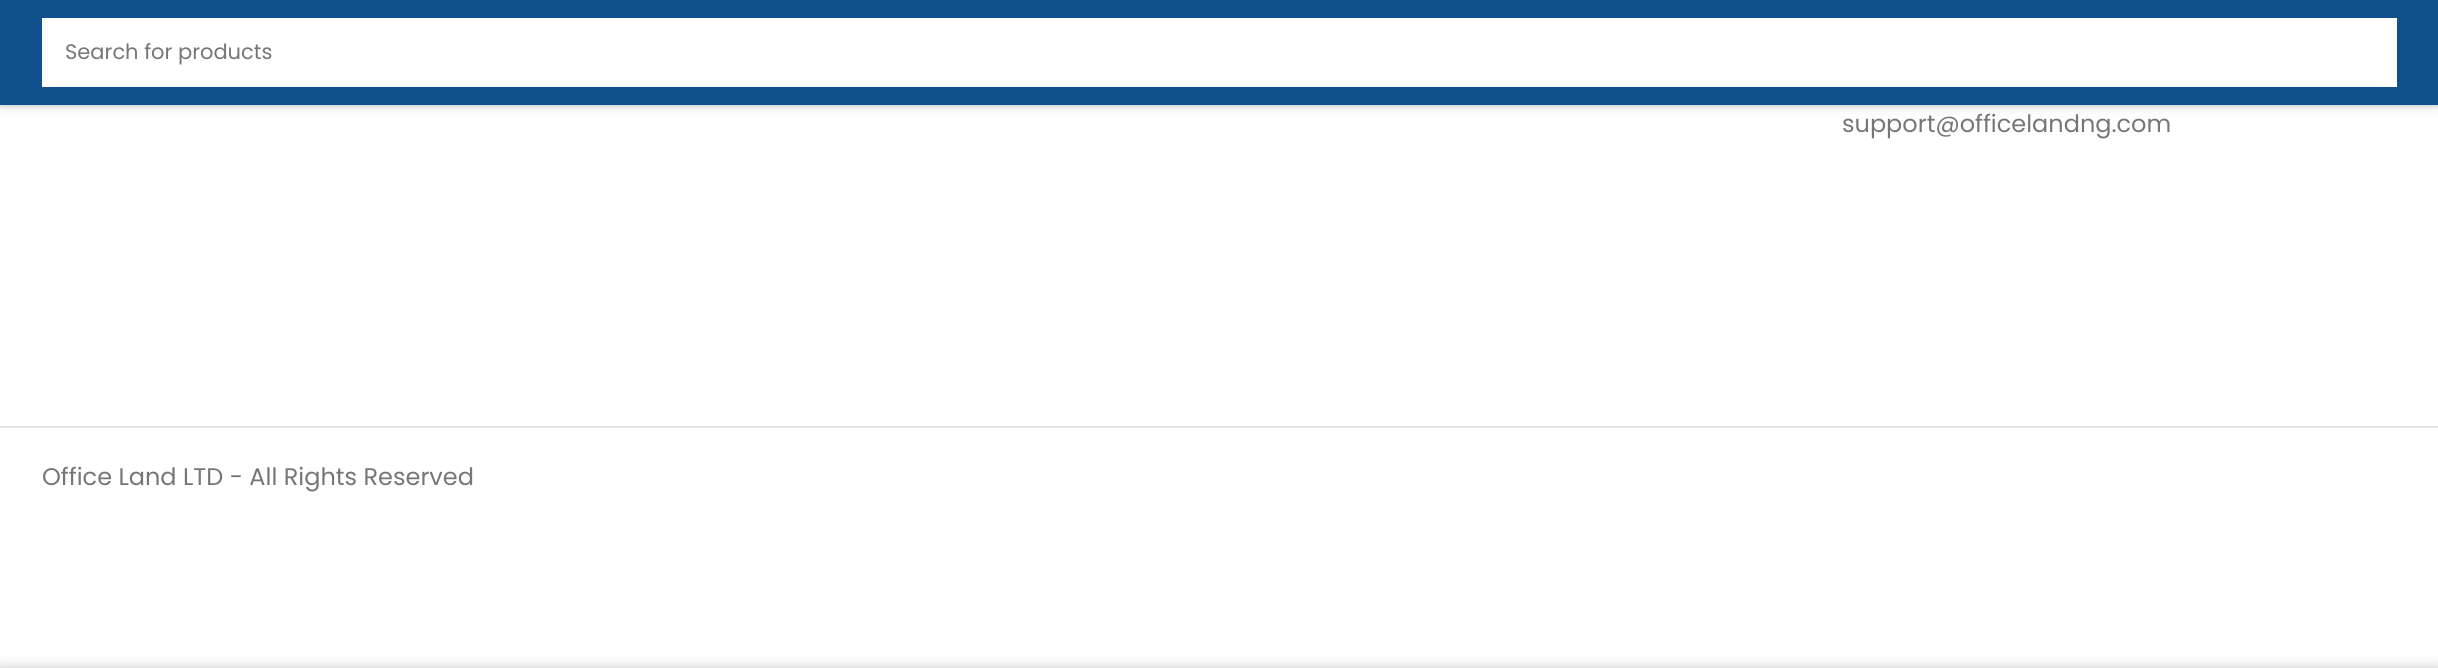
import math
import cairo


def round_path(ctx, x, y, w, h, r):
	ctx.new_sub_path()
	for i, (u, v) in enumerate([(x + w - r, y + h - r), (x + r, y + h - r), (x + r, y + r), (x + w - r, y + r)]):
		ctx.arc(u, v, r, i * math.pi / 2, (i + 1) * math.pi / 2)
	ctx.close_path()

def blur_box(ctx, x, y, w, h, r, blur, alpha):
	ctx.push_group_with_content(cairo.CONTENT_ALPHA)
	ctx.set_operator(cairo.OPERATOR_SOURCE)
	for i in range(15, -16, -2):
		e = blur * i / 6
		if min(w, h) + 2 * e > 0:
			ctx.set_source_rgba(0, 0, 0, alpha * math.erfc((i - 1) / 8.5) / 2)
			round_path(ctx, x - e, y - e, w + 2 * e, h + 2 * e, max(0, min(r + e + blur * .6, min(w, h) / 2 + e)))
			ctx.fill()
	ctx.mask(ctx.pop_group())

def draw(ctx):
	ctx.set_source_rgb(1, 1, 1)
	ctx.paint()
	ctx.set_source_rgb(0, 0, 0)
	blur_box(ctx, 0, 2, 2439, 105, 0, 2, 0.1)
	blur_box(ctx, 0, 2, 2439, 105, 0, 6, 0.1)
	ctx.set_source_rgb(0.063, 0.318, 0.553)
	ctx.rectangle(0, 0, 2438, 105)
	ctx.fill()
	ctx.set_source_rgb(1, 1, 1)
	ctx.rectangle(42, 18, 2355, 69)
	ctx.fill()
	ctx.select_font_face('Poppins')
	ctx.set_font_size(21)
	ctx.set_source_rgb(0.463, 0.463, 0.463)
	ctx.move_to(65, 59)
	ctx.show_text('Search for products')
	ctx.set_font_size(24)
	ctx.move_to(1842, 132)
	ctx.show_text('support@officelandng.com')
	ctx.set_source_rgb(0.894, 0.894, 0.894)
	ctx.rectangle(0, 426, 2438, 2)
	ctx.fill()
	ctx.set_source_rgb(0.463, 0.463, 0.463)
	ctx.move_to(42, 485)
	ctx.show_text('Office Land LTD - All Rights Reserved')
	ctx.set_source_rgb(0, 0, 0)
	blur_box(ctx, 0, 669, 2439, 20, 0, 7, 0.12)
	blur_box(ctx, 0, 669, 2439, 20, 0, 7, 0.14)


surface = cairo.ImageSurface(cairo.FORMAT_RGB24, 2438, 668)
ctx = cairo.Context(surface)
options = cairo.FontOptions()
options.set_hint_metrics(cairo.HINT_METRICS_OFF)
options.set_hint_style(cairo.HINT_STYLE_NONE)
ctx.set_font_options(options)
ctx.set_miter_limit(4)
draw(ctx)
surface.write_to_png('image.png')
